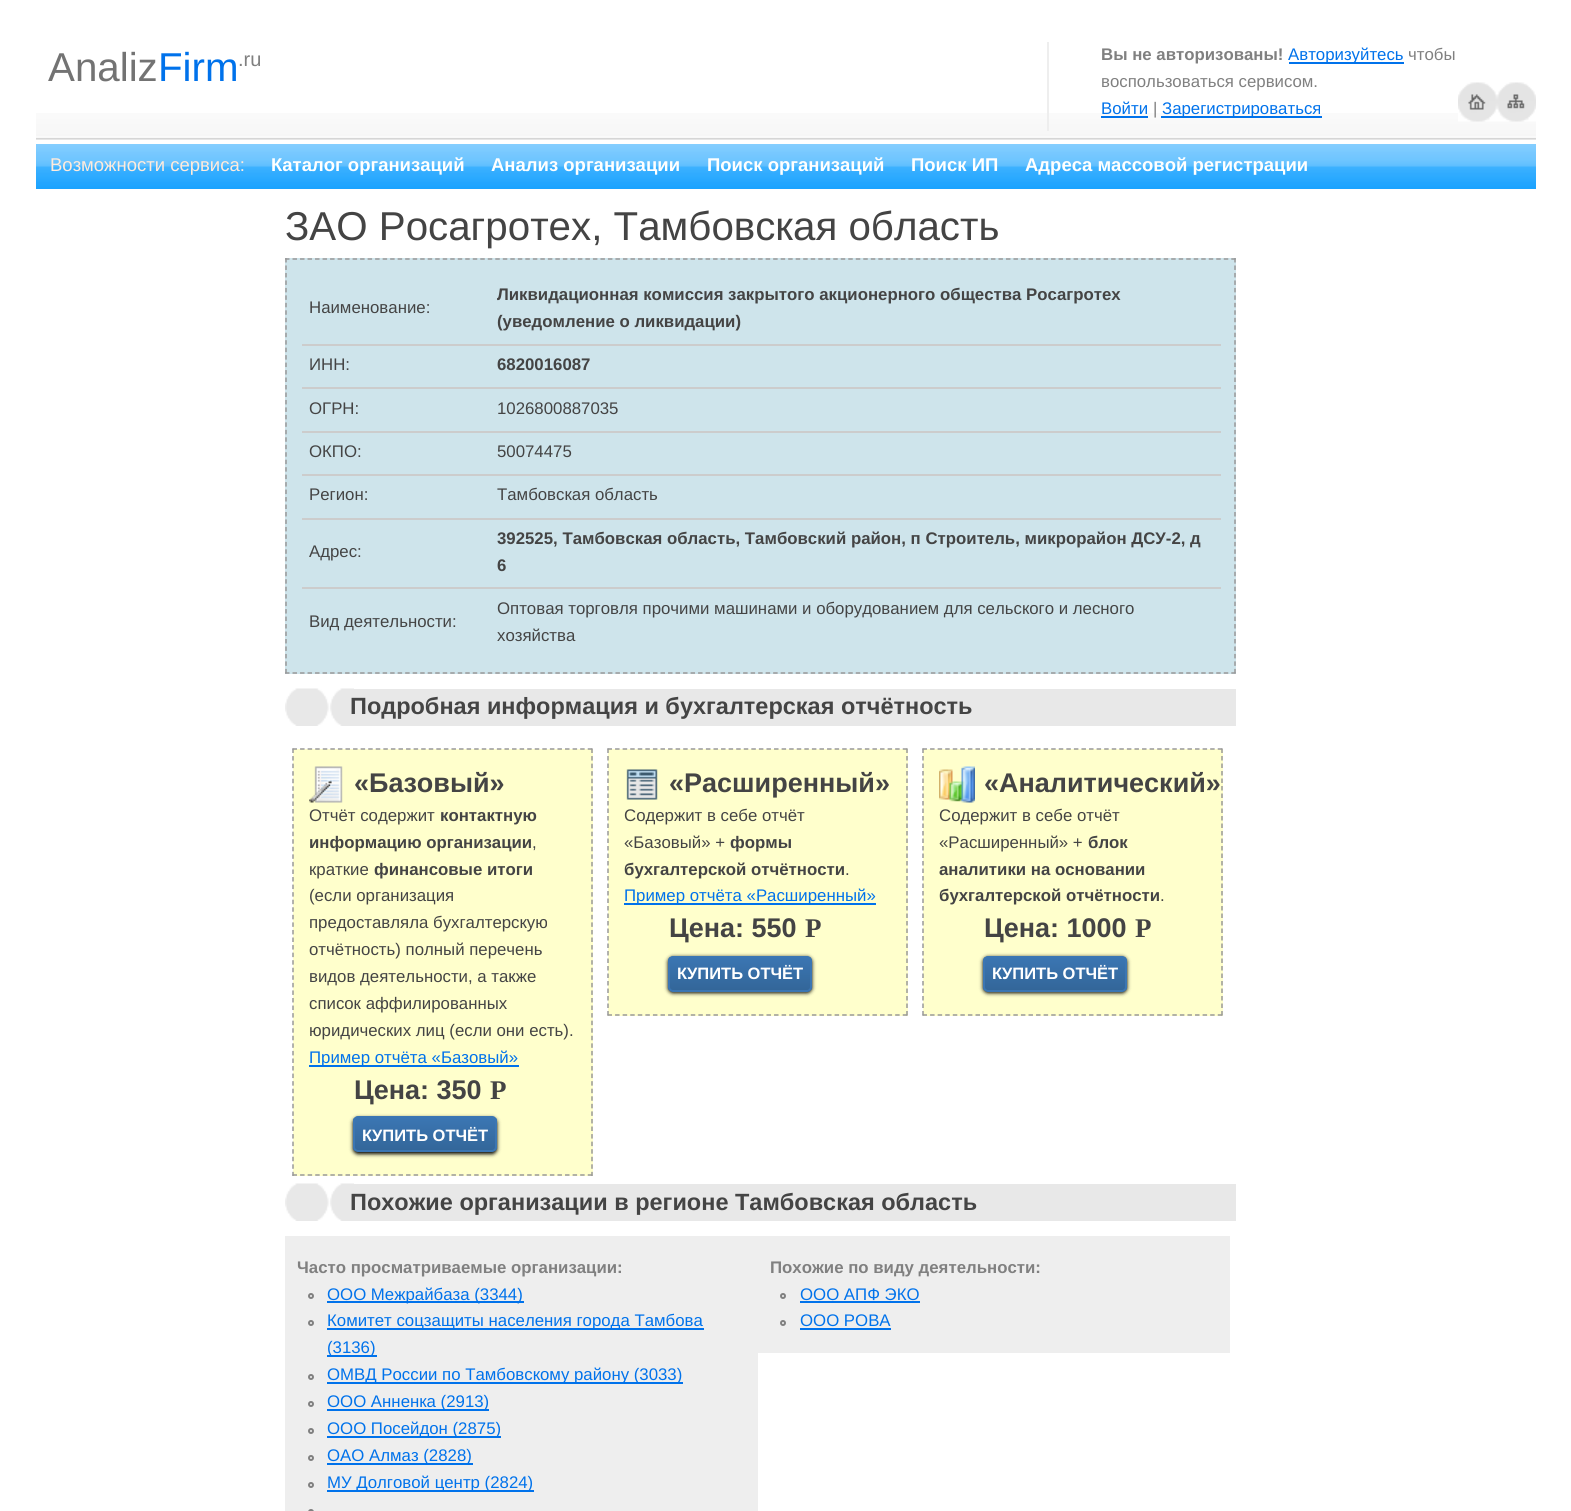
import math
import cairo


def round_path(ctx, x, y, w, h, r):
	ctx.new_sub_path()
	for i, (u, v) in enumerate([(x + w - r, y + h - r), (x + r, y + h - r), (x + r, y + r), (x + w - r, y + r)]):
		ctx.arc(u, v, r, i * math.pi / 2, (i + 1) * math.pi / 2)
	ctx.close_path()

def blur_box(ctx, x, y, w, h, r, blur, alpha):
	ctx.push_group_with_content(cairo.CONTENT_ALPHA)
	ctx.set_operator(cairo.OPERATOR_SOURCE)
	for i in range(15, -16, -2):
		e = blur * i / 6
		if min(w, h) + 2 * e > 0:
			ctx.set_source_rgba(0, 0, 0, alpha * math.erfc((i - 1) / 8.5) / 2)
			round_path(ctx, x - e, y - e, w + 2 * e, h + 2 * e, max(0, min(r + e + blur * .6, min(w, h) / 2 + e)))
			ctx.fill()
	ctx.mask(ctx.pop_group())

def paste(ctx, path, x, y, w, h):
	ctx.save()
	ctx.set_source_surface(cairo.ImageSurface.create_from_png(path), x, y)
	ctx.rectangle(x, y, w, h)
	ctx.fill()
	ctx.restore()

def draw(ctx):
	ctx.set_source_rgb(1, 1, 1)
	ctx.paint()
	paste(ctx, 'media/1.png', 36, 113, 1500, 27)
	ctx.select_font_face('Liberation Sans')
	ctx.set_font_size(40.3)
	ctx.set_source_rgb(0.451, 0.451, 0.451)
	ctx.move_to(48, 81)
	ctx.show_text('Analiz')
	ctx.set_source_rgb(0, 0.447, 0.918)
	ctx.move_to(158, 81)
	ctx.show_text('Firm')
	ctx.set_font_size(20)
	ctx.set_source_rgb(0.502, 0.502, 0.502)
	ctx.move_to(238, 66)
	ctx.show_text('.ru')
	ctx.set_source_rgb(0.933, 0.933, 0.933)
	ctx.rectangle(1047, 42, 2, 89)
	ctx.fill()
	ctx.select_font_face('Liberation Sans', cairo.FONT_SLANT_NORMAL, cairo.FONT_WEIGHT_BOLD)
	ctx.set_font_size(16.8)
	ctx.set_source_rgb(0.502, 0.502, 0.502)
	ctx.move_to(1101, 60)
	ctx.show_text('Вы не авторизованы!')
	ctx.set_source_rgb(0, 0.447, 0.918)
	ctx.rectangle(1289, 62, 115, 2)
	ctx.fill()
	ctx.select_font_face('Liberation Sans')
	ctx.move_to(1288, 60)
	ctx.show_text('Авторизуйтесь')
	ctx.set_source_rgb(0.502, 0.502, 0.502)
	ctx.move_to(1408, 60)
	ctx.show_text('чтобы')
	ctx.move_to(1101, 87)
	ctx.show_text('воспользоваться сервисом.')
	ctx.set_source_rgb(0, 0.447, 0.918)
	ctx.move_to(1101, 114)
	ctx.show_text('Войти')
	ctx.rectangle(1101, 116, 47, 2)
	ctx.fill()
	ctx.set_source_rgb(0.502, 0.502, 0.502)
	ctx.move_to(1153, 114)
	ctx.show_text('|')
	ctx.set_source_rgb(0, 0.447, 0.918)
	ctx.rectangle(1161, 116, 161, 2)
	ctx.fill()
	ctx.move_to(1162, 114)
	ctx.show_text('Зарегистрироваться')
	paste(ctx, 'media/2.png', 1458, 82, 39, 40)
	paste(ctx, 'media/3.png', 1497, 82, 39, 40)
	paste(ctx, 'media/4.png', 36, 144, 1500, 45)
	ctx.set_font_size(18.5)
	ctx.set_source_rgb(1, 0.918, 0.863)
	ctx.move_to(50, 171)
	ctx.show_text('Возможности сервиса:')
	ctx.select_font_face('Liberation Sans', cairo.FONT_SLANT_NORMAL, cairo.FONT_WEIGHT_BOLD)
	ctx.set_source_rgb(1, 1, 1)
	for x, y, s in [
		(271, 171, 'Каталог организаций'),
		(491, 171, 'Анализ организации'),
		(707, 171, 'Поиск организаций'),
		(911, 171, 'Поиск ИП'),
		(1025, 171, 'Адреса массовой регистрации'),
	]:
		ctx.move_to(x, y)
		ctx.show_text(s)
	ctx.select_font_face('Liberation Sans')
	ctx.set_font_size(40.3)
	ctx.set_source_rgb(0.267, 0.267, 0.267)
	ctx.move_to(285, 240)
	ctx.show_text('ЗАО Росагротех, Тамбовская область')
	ctx.set_source_rgb(0.808, 0.894, 0.918)
	ctx.rectangle(285, 258, 951, 416)
	ctx.fill()
	ctx.new_path()
	ctx.move_to(285, 259)
	ctx.line_to(1236, 259)
	ctx.set_source_rgb(0.6, 0.6, 0.6)
	ctx.set_line_width(1.5)
	ctx.set_dash([4.5, 3.01])
	ctx.stroke()
	ctx.new_path()
	ctx.move_to(1235, 258)
	ctx.line_to(1235, 673.5)
	ctx.set_dash([4.5, 2.97])
	ctx.stroke()
	ctx.new_path()
	ctx.move_to(285, 673)
	ctx.line_to(1236, 673)
	ctx.set_dash([4.5, 3.01])
	ctx.stroke()
	ctx.new_path()
	ctx.move_to(286, 258)
	ctx.line_to(286, 673.5)
	ctx.set_dash([4.5, 2.97])
	ctx.stroke()
	ctx.set_font_size(16.8)
	ctx.set_source_rgb(0.267, 0.267, 0.267)
	ctx.move_to(309, 313)
	ctx.show_text('Наименование:')
	ctx.set_source_rgb(0.8, 0.8, 0.8)
	ctx.rectangle(302, 344, 919, 2)
	ctx.fill()
	ctx.select_font_face('Liberation Sans', cairo.FONT_SLANT_NORMAL, cairo.FONT_WEIGHT_BOLD)
	ctx.set_source_rgb(0.267, 0.267, 0.267)
	ctx.move_to(497, 300)
	ctx.show_text('Ликвидационная комиссия закрытого акционерного общества Росагротех')
	ctx.move_to(497, 327)
	ctx.show_text('(уведомление о ликвидации)')
	ctx.select_font_face('Liberation Sans')
	ctx.move_to(309, 370)
	ctx.show_text('ИНН:')
	ctx.set_source_rgb(0.8, 0.8, 0.8)
	ctx.rectangle(302, 387, 919, 2)
	ctx.fill()
	ctx.select_font_face('Liberation Sans', cairo.FONT_SLANT_NORMAL, cairo.FONT_WEIGHT_BOLD)
	ctx.set_source_rgb(0.267, 0.267, 0.267)
	ctx.move_to(497, 370)
	ctx.show_text('6820016087')
	ctx.select_font_face('Liberation Sans')
	ctx.move_to(309, 414)
	ctx.show_text('ОГРН:')
	ctx.set_source_rgb(0.8, 0.8, 0.8)
	ctx.rectangle(302, 431, 919, 2)
	ctx.fill()
	ctx.set_source_rgb(0.267, 0.267, 0.267)
	ctx.move_to(497, 414)
	ctx.show_text('1026800887035')
	ctx.move_to(309, 457)
	ctx.show_text('ОКПО:')
	ctx.set_source_rgb(0.8, 0.8, 0.8)
	ctx.rectangle(302, 474, 919, 2)
	ctx.fill()
	ctx.set_source_rgb(0.267, 0.267, 0.267)
	ctx.move_to(497, 457)
	ctx.show_text('50074475')
	ctx.move_to(309, 500)
	ctx.show_text('Регион:')
	ctx.set_source_rgb(0.8, 0.8, 0.8)
	ctx.rectangle(302, 518, 919, 2)
	ctx.fill()
	ctx.set_source_rgb(0.267, 0.267, 0.267)
	ctx.move_to(497, 500)
	ctx.show_text('Тамбовская область')
	ctx.move_to(309, 557)
	ctx.show_text('Адрес:')
	ctx.set_source_rgb(0.8, 0.8, 0.8)
	ctx.rectangle(302, 587, 919, 2)
	ctx.fill()
	ctx.select_font_face('Liberation Sans', cairo.FONT_SLANT_NORMAL, cairo.FONT_WEIGHT_BOLD)
	ctx.set_source_rgb(0.267, 0.267, 0.267)
	ctx.move_to(497, 544)
	ctx.show_text('392525, Тамбовская область, Тамбовский район, п Строитель, микрорайон ДСУ-2, д')
	ctx.move_to(497, 571)
	ctx.show_text('6')
	ctx.select_font_face('Liberation Sans')
	for x, y, s in [
		(309, 627, 'Вид деятельности:'),
		(497, 614, 'Оптовая торговля прочими машинами и оборудованием для сельского и лесного'),
		(497, 641, 'хозяйства'),
	]:
		ctx.move_to(x, y)
		ctx.show_text(s)
	ctx.set_source_rgb(0.91, 0.91, 0.91)
	ctx.rectangle(354, 689, 882, 37)
	ctx.fill()
	paste(ctx, 'media/5.png', 285, 688, 69, 38)
	ctx.select_font_face('Liberation Sans', cairo.FONT_SLANT_NORMAL, cairo.FONT_WEIGHT_BOLD)
	ctx.set_font_size(23.5)
	ctx.set_source_rgb(0.267, 0.267, 0.267)
	ctx.move_to(350, 714)
	ctx.show_text('Подробная информация и бухгалтерская отчётность')
	ctx.set_source_rgb(1, 1, 0.8)
	ctx.rectangle(293, 749, 300, 427)
	ctx.fill()
	ctx.new_path()
	ctx.move_to(292.5, 749)
	ctx.line_to(592.5, 749)
	ctx.set_source_rgb(0.6, 0.6, 0.6)
	ctx.set_dash([4.5, 3.07])
	ctx.stroke()
	ctx.new_path()
	ctx.move_to(592, 748.5)
	ctx.line_to(592, 1176)
	ctx.set_dash([4.5, 3.06])
	ctx.stroke()
	ctx.new_path()
	ctx.move_to(292.5, 1175)
	ctx.line_to(592.5, 1175)
	ctx.set_dash([4.5, 3.07])
	ctx.stroke()
	ctx.new_path()
	ctx.move_to(293, 748.5)
	ctx.line_to(293, 1176)
	ctx.set_dash([4.5, 3.06])
	ctx.stroke()
	paste(ctx, 'media/6.png', 309, 766, 34, 37)
	ctx.set_font_size(27)
	ctx.set_source_rgb(0.267, 0.267, 0.267)
	ctx.move_to(354, 792)
	ctx.show_text('«Базовый»')
	ctx.select_font_face('Liberation Sans')
	ctx.set_font_size(16.8)
	ctx.move_to(309, 821)
	ctx.show_text('Отчёт содержит')
	ctx.select_font_face('Liberation Sans', cairo.FONT_SLANT_NORMAL, cairo.FONT_WEIGHT_BOLD)
	ctx.move_to(440, 821)
	ctx.show_text('контактную')
	ctx.move_to(309, 848)
	ctx.show_text('информацию организации')
	ctx.select_font_face('Liberation Sans')
	ctx.move_to(532, 848)
	ctx.show_text(',')
	ctx.move_to(309, 875)
	ctx.show_text('краткие')
	ctx.select_font_face('Liberation Sans', cairo.FONT_SLANT_NORMAL, cairo.FONT_WEIGHT_BOLD)
	ctx.move_to(374, 875)
	ctx.show_text('финансовые итоги')
	ctx.select_font_face('Liberation Sans')
	for x, y, s in [
		(309, 901, '(если организация'),
		(309, 928, 'предоставляла бухгалтерскую'),
		(309, 955, 'отчётность) полный перечень'),
		(309, 982, 'видов деятельности, а также'),
		(309, 1009, 'список аффилированных'),
		(309, 1036, 'юридических лиц (если они есть).'),
	]:
		ctx.move_to(x, y)
		ctx.show_text(s)
	ctx.set_source_rgb(0, 0.447, 0.918)
	ctx.rectangle(309, 1065, 210, 2)
	ctx.fill()
	ctx.move_to(309, 1063)
	ctx.show_text('Пример отчёта «Базовый»')
	ctx.select_font_face('Liberation Sans', cairo.FONT_SLANT_NORMAL, cairo.FONT_WEIGHT_BOLD)
	ctx.set_font_size(27)
	ctx.set_source_rgb(0.267, 0.267, 0.267)
	ctx.move_to(354, 1099)
	ctx.show_text('Цена: 350')
	ctx.select_font_face('Liberation Serif', cairo.FONT_SLANT_NORMAL, cairo.FONT_WEIGHT_BOLD)
	ctx.move_to(490, 1099)
	ctx.show_text('Р')
	ctx.set_source_rgb(0, 0, 0)
	blur_box(ctx, 353, 1118, 144, 36, 5, 2, 1)
	ctx.save()
	round_path(ctx, 353, 1116, 144, 36, 5)
	ctx.clip()
	gradient = cairo.LinearGradient(354, 1118, 354, 1151)
	gradient.add_color_stop_rgba(0, 0.231, 0.463, 0.702, 1)
	gradient.add_color_stop_rgba(1, 0.2, 0.4, 0.6, 1)
	ctx.set_source(gradient)
	ctx.rectangle(353, 1118, 144, 33)
	ctx.fill()
	ctx.restore()
	round_path(ctx, 354, 1117, 142, 34, 4)
	ctx.set_source_rgb(0.231, 0.463, 0.702)
	ctx.set_line_width(2)
	ctx.set_dash([])
	ctx.stroke()
	ctx.select_font_face('Liberation Sans', cairo.FONT_SLANT_NORMAL, cairo.FONT_WEIGHT_BOLD)
	ctx.set_font_size(16.5)
	ctx.set_source_rgb(1, 1, 1)
	ctx.move_to(362, 1141)
	ctx.show_text('КУПИТЬ ОТЧЁТ')
	ctx.set_source_rgb(1, 1, 0.8)
	ctx.rectangle(608, 749, 300, 267)
	ctx.fill()
	ctx.new_path()
	ctx.move_to(607.5, 749)
	ctx.line_to(907.5, 749)
	ctx.set_source_rgb(0.6, 0.6, 0.6)
	ctx.set_line_width(1.5)
	ctx.set_dash([4.5, 3.07])
	ctx.stroke()
	ctx.new_path()
	ctx.move_to(907, 748.5)
	ctx.line_to(907, 1015.5)
	ctx.set_dash([4.5, 3])
	ctx.stroke()
	ctx.new_path()
	ctx.move_to(607.5, 1015)
	ctx.line_to(907.5, 1015)
	ctx.set_dash([4.5, 3.07])
	ctx.stroke()
	ctx.new_path()
	ctx.move_to(608, 748.5)
	ctx.line_to(608, 1015.5)
	ctx.set_dash([4.5, 3])
	ctx.stroke()
	paste(ctx, 'media/7.png', 626, 769, 32, 31)
	ctx.set_font_size(27)
	ctx.set_source_rgb(0.267, 0.267, 0.267)
	ctx.move_to(669, 792)
	ctx.show_text('«Расширенный»')
	ctx.select_font_face('Liberation Sans')
	ctx.set_font_size(16.8)
	ctx.move_to(624, 821)
	ctx.show_text('Содержит в себе отчёт')
	ctx.move_to(624, 848)
	ctx.show_text('«Базовый» +')
	ctx.select_font_face('Liberation Sans', cairo.FONT_SLANT_NORMAL, cairo.FONT_WEIGHT_BOLD)
	ctx.move_to(730, 848)
	ctx.show_text('формы')
	ctx.move_to(624, 875)
	ctx.show_text('бухгалтерской отчётности')
	ctx.select_font_face('Liberation Sans')
	ctx.move_to(845, 875)
	ctx.show_text('.')
	ctx.set_source_rgb(0, 0.447, 0.918)
	ctx.rectangle(624, 903, 252, 2)
	ctx.fill()
	ctx.move_to(624, 901)
	ctx.show_text('Пример отчёта «Расширенный»')
	ctx.select_font_face('Liberation Sans', cairo.FONT_SLANT_NORMAL, cairo.FONT_WEIGHT_BOLD)
	ctx.set_font_size(27)
	ctx.set_source_rgb(0.267, 0.267, 0.267)
	ctx.move_to(669, 937)
	ctx.show_text('Цена: 550')
	ctx.select_font_face('Liberation Serif', cairo.FONT_SLANT_NORMAL, cairo.FONT_WEIGHT_BOLD)
	ctx.move_to(805, 937)
	ctx.show_text('Р')
	ctx.set_source_rgb(0, 0, 0)
	blur_box(ctx, 668, 957, 144, 36, 5, 2, 1)
	ctx.save()
	round_path(ctx, 668, 956, 144, 36, 5)
	ctx.clip()
	gradient = cairo.LinearGradient(669, 957, 669, 990)
	gradient.add_color_stop_rgba(0, 0.231, 0.463, 0.702, 1)
	gradient.add_color_stop_rgba(1, 0.2, 0.4, 0.6, 1)
	ctx.set_source(gradient)
	ctx.rectangle(668, 957, 144, 33)
	ctx.fill()
	ctx.restore()
	round_path(ctx, 669, 957, 142, 34, 4)
	ctx.set_source_rgb(0.231, 0.463, 0.702)
	ctx.set_line_width(2)
	ctx.set_dash([])
	ctx.stroke()
	ctx.select_font_face('Liberation Sans', cairo.FONT_SLANT_NORMAL, cairo.FONT_WEIGHT_BOLD)
	ctx.set_font_size(16.5)
	ctx.set_source_rgb(1, 1, 1)
	ctx.move_to(677, 979)
	ctx.show_text('КУПИТЬ ОТЧЁТ')
	ctx.set_source_rgb(1, 1, 0.8)
	ctx.rectangle(923, 749, 300, 267)
	ctx.fill()
	ctx.new_path()
	ctx.move_to(922.5, 749)
	ctx.line_to(1222.5, 749)
	ctx.set_source_rgb(0.6, 0.6, 0.6)
	ctx.set_line_width(1.5)
	ctx.set_dash([4.5, 3.07])
	ctx.stroke()
	ctx.new_path()
	ctx.move_to(1222, 748.5)
	ctx.line_to(1222, 1015.5)
	ctx.set_dash([4.5, 3])
	ctx.stroke()
	ctx.new_path()
	ctx.move_to(922.5, 1015)
	ctx.line_to(1222.5, 1015)
	ctx.set_dash([4.5, 3.07])
	ctx.stroke()
	ctx.new_path()
	ctx.move_to(923, 748.5)
	ctx.line_to(923, 1015.5)
	ctx.set_dash([4.5, 3])
	ctx.stroke()
	paste(ctx, 'media/8.png', 939, 766, 36, 37)
	ctx.set_font_size(27)
	ctx.set_source_rgb(0.267, 0.267, 0.267)
	ctx.move_to(984, 792)
	ctx.show_text('«Аналитический»')
	ctx.select_font_face('Liberation Sans')
	ctx.set_font_size(16.8)
	ctx.move_to(939, 821)
	ctx.show_text('Содержит в себе отчёт')
	ctx.move_to(939, 848)
	ctx.show_text('«Расширенный» +')
	ctx.select_font_face('Liberation Sans', cairo.FONT_SLANT_NORMAL, cairo.FONT_WEIGHT_BOLD)
	for x, y, s in [
		(1088, 848, 'блок'),
		(939, 875, 'аналитики на основании'),
		(939, 901, 'бухгалтерской отчётности'),
	]:
		ctx.move_to(x, y)
		ctx.show_text(s)
	ctx.select_font_face('Liberation Sans')
	ctx.move_to(1160, 901)
	ctx.show_text('.')
	ctx.select_font_face('Liberation Sans', cairo.FONT_SLANT_NORMAL, cairo.FONT_WEIGHT_BOLD)
	ctx.set_font_size(27)
	ctx.move_to(984, 937)
	ctx.show_text('Цена: 1000')
	ctx.select_font_face('Liberation Serif', cairo.FONT_SLANT_NORMAL, cairo.FONT_WEIGHT_BOLD)
	ctx.move_to(1135, 937)
	ctx.show_text('Р')
	ctx.set_source_rgb(0, 0, 0)
	blur_box(ctx, 983, 957, 144, 36, 5, 2, 1)
	ctx.save()
	round_path(ctx, 983, 956, 144, 36, 5)
	ctx.clip()
	gradient = cairo.LinearGradient(984, 957, 984, 990)
	gradient.add_color_stop_rgba(0, 0.231, 0.463, 0.702, 1)
	gradient.add_color_stop_rgba(1, 0.2, 0.4, 0.6, 1)
	ctx.set_source(gradient)
	ctx.rectangle(983, 957, 144, 33)
	ctx.fill()
	ctx.restore()
	round_path(ctx, 984, 957, 142, 34, 4)
	ctx.set_source_rgb(0.231, 0.463, 0.702)
	ctx.set_line_width(2)
	ctx.set_dash([])
	ctx.stroke()
	ctx.select_font_face('Liberation Sans', cairo.FONT_SLANT_NORMAL, cairo.FONT_WEIGHT_BOLD)
	ctx.set_font_size(16.5)
	ctx.set_source_rgb(1, 1, 1)
	ctx.move_to(992, 979)
	ctx.show_text('КУПИТЬ ОТЧЁТ')
	ctx.set_source_rgb(0.91, 0.91, 0.91)
	ctx.rectangle(354, 1184, 882, 37)
	ctx.fill()
	paste(ctx, 'media/5.png', 285, 1183, 69, 38)
	ctx.set_font_size(23.5)
	ctx.set_source_rgb(0.267, 0.267, 0.267)
	ctx.move_to(350, 1210)
	ctx.show_text('Похожие организации в регионе Тамбовская область')
	ctx.set_source_rgb(0.933, 0.933, 0.933)
	ctx.rectangle(285, 1236, 473, 275)
	ctx.fill()
	ctx.set_font_size(16.8)
	ctx.set_source_rgb(0.502, 0.502, 0.502)
	ctx.move_to(297, 1273)
	ctx.show_text('Часто просматриваемые организации:')
	ctx.new_path()
	ctx.arc(311, 1296, 2, 0, 2 * math.pi)
	ctx.stroke()
	ctx.set_source_rgb(0, 0.447, 0.918)
	ctx.rectangle(327, 1301, 197, 2)
	ctx.fill()
	ctx.select_font_face('Liberation Sans')
	ctx.move_to(327, 1300)
	ctx.show_text('ООО Межрайбаза (3344)')
	ctx.new_path()
	ctx.arc(311, 1323, 2, 0, 2 * math.pi)
	ctx.set_source_rgb(0.502, 0.502, 0.502)
	ctx.stroke()
	ctx.set_source_rgb(0, 0.447, 0.918)
	ctx.rectangle(327, 1328, 377, 2)
	ctx.fill()
	ctx.move_to(327, 1326)
	ctx.show_text('Комитет соцзащиты населения города Тамбова')
	ctx.rectangle(327, 1355, 50, 2)
	ctx.fill()
	ctx.move_to(327, 1353)
	ctx.show_text('(3136)')
	ctx.new_path()
	ctx.arc(311, 1377, 2, 0, 2 * math.pi)
	ctx.set_source_rgb(0.502, 0.502, 0.502)
	ctx.stroke()
	ctx.set_source_rgb(0, 0.447, 0.918)
	ctx.rectangle(327, 1382, 356, 2)
	ctx.fill()
	ctx.move_to(327, 1380)
	ctx.show_text('ОМВД России по Тамбовскому району (3033)')
	ctx.new_path()
	ctx.arc(311, 1404, 2, 0, 2 * math.pi)
	ctx.set_source_rgb(0.502, 0.502, 0.502)
	ctx.stroke()
	ctx.set_source_rgb(0, 0.447, 0.918)
	ctx.rectangle(327, 1409, 162, 2)
	ctx.fill()
	ctx.move_to(327, 1407)
	ctx.show_text('ООО Анненка (2913)')
	ctx.new_path()
	ctx.arc(311, 1431, 2, 0, 2 * math.pi)
	ctx.set_source_rgb(0.502, 0.502, 0.502)
	ctx.stroke()
	ctx.set_source_rgb(0, 0.447, 0.918)
	ctx.rectangle(327, 1436, 174, 2)
	ctx.fill()
	ctx.move_to(327, 1434)
	ctx.show_text('ООО Посейдон (2875)')
	ctx.new_path()
	ctx.arc(311, 1458, 2, 0, 2 * math.pi)
	ctx.set_source_rgb(0.502, 0.502, 0.502)
	ctx.stroke()
	ctx.set_source_rgb(0, 0.447, 0.918)
	ctx.rectangle(327, 1463, 146, 2)
	ctx.fill()
	ctx.move_to(327, 1461)
	ctx.show_text('ОАО Алмаз (2828)')
	ctx.new_path()
	ctx.arc(311, 1485, 2, 0, 2 * math.pi)
	ctx.set_source_rgb(0.502, 0.502, 0.502)
	ctx.stroke()
	ctx.set_source_rgb(0, 0.447, 0.918)
	ctx.rectangle(327, 1490, 207, 2)
	ctx.fill()
	ctx.move_to(327, 1488)
	ctx.show_text('МУ Долговой центр (2824)')
	ctx.new_path()
	ctx.arc(311, 1512, 2, 0, 2 * math.pi)
	ctx.set_source_rgb(0.502, 0.502, 0.502)
	ctx.stroke()
	ctx.set_source_rgb(0.933, 0.933, 0.933)
	ctx.rectangle(758, 1236, 472, 117)
	ctx.fill()
	ctx.select_font_face('Liberation Sans', cairo.FONT_SLANT_NORMAL, cairo.FONT_WEIGHT_BOLD)
	ctx.set_source_rgb(0.502, 0.502, 0.502)
	ctx.move_to(770, 1273)
	ctx.show_text('Похожие по виду деятельности:')
	ctx.new_path()
	ctx.arc(783, 1296, 2, 0, 2 * math.pi)
	ctx.stroke()
	ctx.select_font_face('Liberation Sans')
	ctx.set_source_rgb(0, 0.447, 0.918)
	ctx.move_to(800, 1300)
	ctx.show_text('ООО АПФ ЭКО')
	ctx.rectangle(800, 1301, 120, 2)
	ctx.fill()
	ctx.arc(783, 1323, 2, 0, 2 * math.pi)
	ctx.set_source_rgb(0.502, 0.502, 0.502)
	ctx.stroke()
	ctx.set_source_rgb(0, 0.447, 0.918)
	ctx.move_to(800, 1326)
	ctx.show_text('ООО РОВА')
	ctx.rectangle(800, 1328, 91, 2)
	ctx.fill()


surface = cairo.ImageSurface(cairo.FORMAT_RGB24, 1571, 1511)
ctx = cairo.Context(surface)
options = cairo.FontOptions()
options.set_hint_metrics(cairo.HINT_METRICS_OFF)
options.set_hint_style(cairo.HINT_STYLE_NONE)
ctx.set_font_options(options)
ctx.set_miter_limit(4)
draw(ctx)
surface.write_to_png('image.png')
